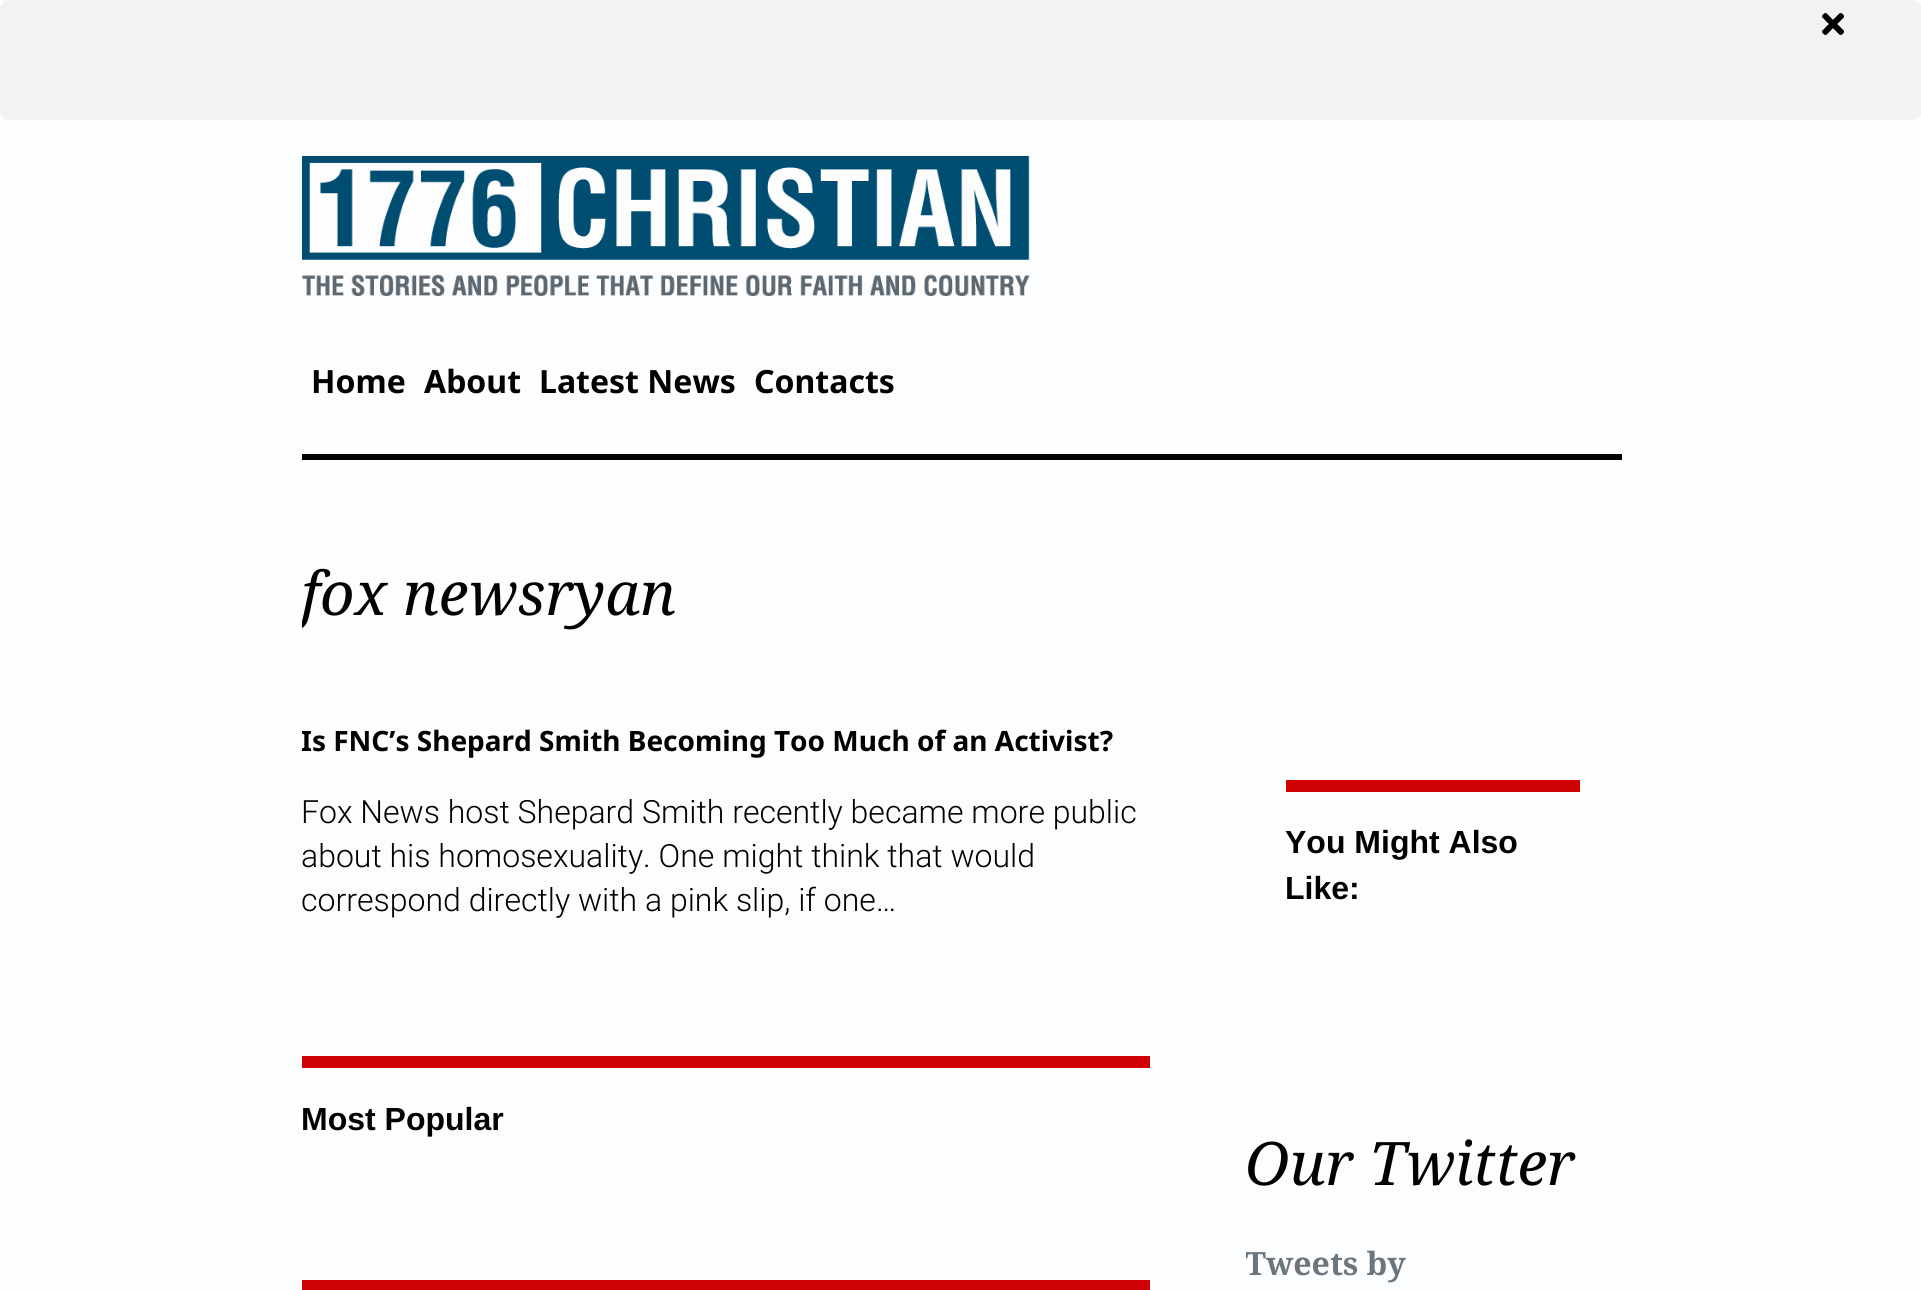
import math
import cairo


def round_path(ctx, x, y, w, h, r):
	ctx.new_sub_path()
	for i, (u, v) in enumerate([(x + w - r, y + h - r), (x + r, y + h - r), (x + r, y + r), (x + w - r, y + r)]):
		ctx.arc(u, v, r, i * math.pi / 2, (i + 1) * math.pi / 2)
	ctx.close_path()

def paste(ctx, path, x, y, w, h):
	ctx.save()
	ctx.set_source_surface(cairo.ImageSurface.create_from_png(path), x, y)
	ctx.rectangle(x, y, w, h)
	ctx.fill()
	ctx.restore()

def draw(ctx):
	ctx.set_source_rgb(0.988, 0.992, 0.996)
	ctx.paint()
	ctx.set_source_rgb(0.949, 0.949, 0.953)
	round_path(ctx, 0, 0, 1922, 120, 10)
	ctx.fill()
	paste(ctx, 'media/1.png', 1822, 13, 22, 22)
	ctx.set_source_rgb(0, 0.004, 0.004)
	ctx.rectangle(302, 454, 1320, 6)
	ctx.fill()
	paste(ctx, 'media/2.png', 302, 156, 728, 140)
	ctx.select_font_face('Noto Sans', cairo.FONT_SLANT_NORMAL, cairo.FONT_WEIGHT_BOLD)
	ctx.set_font_size(32)
	for x, y, s in [
		(311, 393, 'Home'),
		(424, 393, 'About'),
		(539, 393, 'Latest News'),
		(754, 393, 'Contacts'),
	]:
		ctx.move_to(x, y)
		ctx.show_text(s)
	ctx.save()
	ctx.rectangle(302, 540, 848, 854)
	ctx.clip()
	ctx.select_font_face('Noto Serif', cairo.FONT_SLANT_ITALIC)
	ctx.set_font_size(60)
	ctx.move_to(301, 615)
	ctx.show_text('fox newsryan')
	ctx.restore()
	ctx.save()
	ctx.rectangle(302, 720, 848, 276)
	ctx.clip()
	ctx.set_font_size(28)
	ctx.move_to(301, 751)
	ctx.show_text('Is FNC’s Shepard Smith Becoming Too Much of an Activist?')
	ctx.restore()
	ctx.select_font_face('Roboto Light')
	for x, y, s in [
		(301, 823, 'Fox News host Shepard Smith recently became more public'),
		(301, 867, 'about his homosexuality. One might think that would'),
		(301, 911, 'correspond directly with a pink slip, if one…'),
	]:
		ctx.move_to(x, y)
		ctx.show_text(s)
	ctx.set_source_rgb(0.816, 0.004, 0.008)
	ctx.rectangle(302, 1056, 848, 12)
	ctx.fill()
	ctx.select_font_face('Liberation Sans', cairo.FONT_SLANT_NORMAL, cairo.FONT_WEIGHT_BOLD)
	ctx.set_source_rgb(0, 0.004, 0.004)
	ctx.move_to(301, 1130)
	ctx.show_text('Most Popular')
	ctx.set_source_rgb(0.816, 0.004, 0.008)
	ctx.rectangle(302, 1280, 848, 10)
	ctx.fill()
	ctx.rectangle(1286, 780, 294, 12)
	ctx.fill()
	ctx.set_source_rgb(0, 0.004, 0.004)
	ctx.move_to(1285, 853)
	ctx.show_text('You Might Also')
	ctx.move_to(1285, 899)
	ctx.show_text('Like:')
	ctx.select_font_face('Noto Serif', cairo.FONT_SLANT_ITALIC)
	ctx.set_font_size(60)
	ctx.move_to(1245, 1185)
	ctx.show_text('Our Twitter')
	ctx.save()
	ctx.rectangle(1246, 1122, 374, 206)
	ctx.clip()
	ctx.select_font_face('Noto Serif', cairo.FONT_SLANT_NORMAL, cairo.FONT_WEIGHT_BOLD)
	ctx.set_font_size(32)
	ctx.set_source_rgb(0.42, 0.459, 0.49)
	ctx.move_to(1245, 1275)
	ctx.show_text('Tweets by')
	ctx.restore()


surface = cairo.ImageSurface(cairo.FORMAT_RGB24, 1921, 1290)
ctx = cairo.Context(surface)
options = cairo.FontOptions()
options.set_hint_metrics(cairo.HINT_METRICS_OFF)
options.set_hint_style(cairo.HINT_STYLE_NONE)
ctx.set_font_options(options)
ctx.set_miter_limit(4)
draw(ctx)
surface.write_to_png('image.png')
